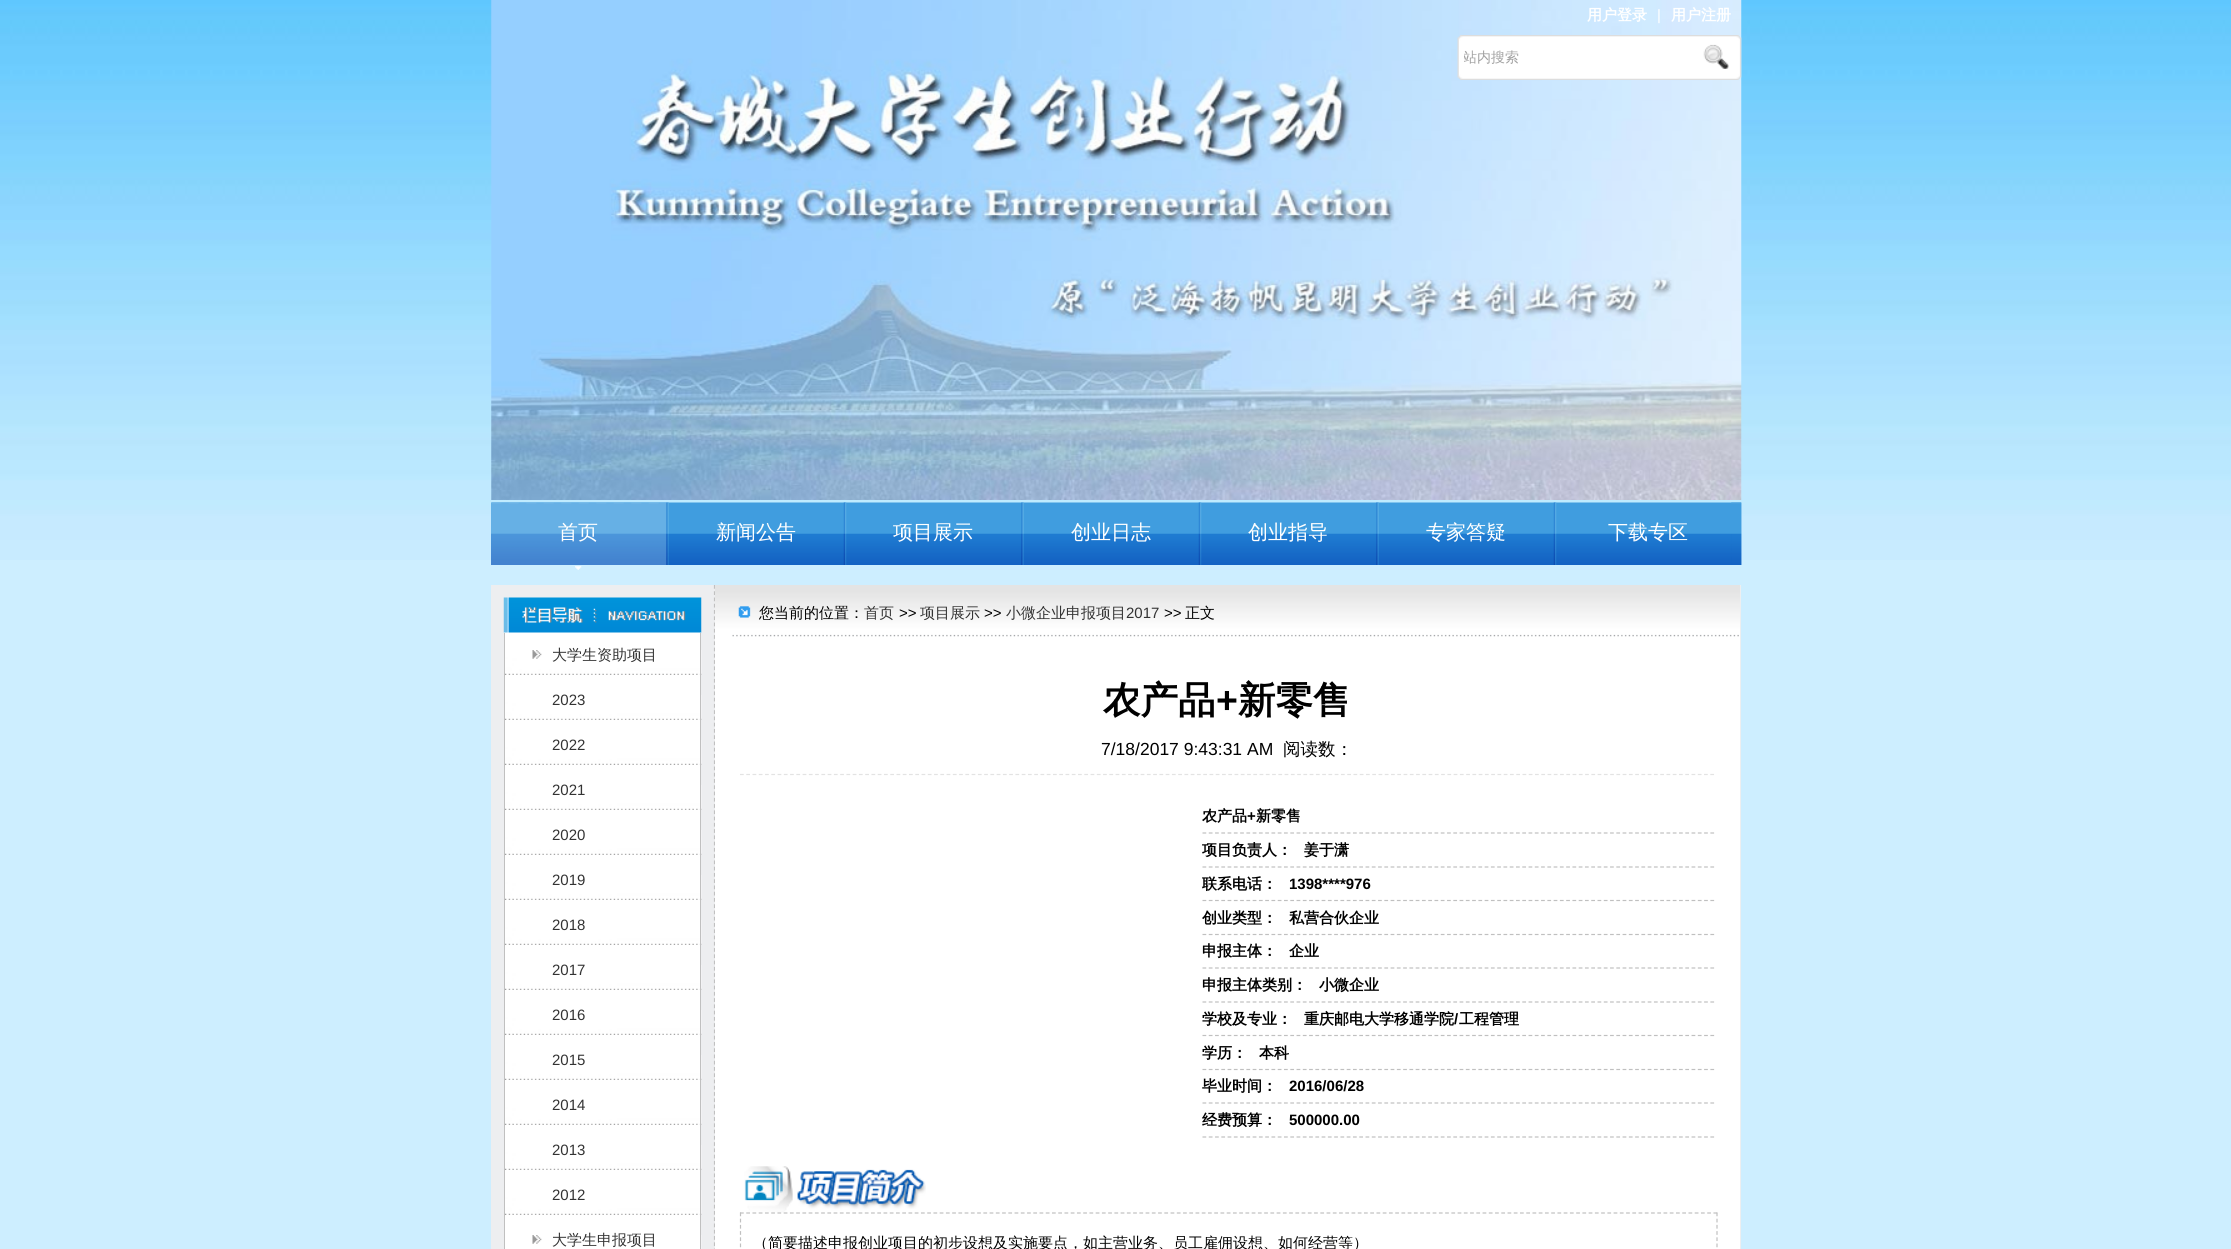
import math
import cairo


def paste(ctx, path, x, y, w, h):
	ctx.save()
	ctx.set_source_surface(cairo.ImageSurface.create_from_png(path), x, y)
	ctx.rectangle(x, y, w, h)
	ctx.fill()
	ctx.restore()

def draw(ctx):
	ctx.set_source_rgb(0.804, 0.933, 1)
	ctx.paint()
	paste(ctx, 'media/1.png', 0, 0, 2231, 560)
	paste(ctx, 'media/2.png', 491, 0, 1251, 500)
	ctx.select_font_face('WenQuanYi Zen Hei', cairo.FONT_SLANT_NORMAL, cairo.FONT_WEIGHT_BOLD)
	ctx.set_font_size(15)
	ctx.set_source_rgb(1, 1, 1)
	ctx.move_to(1587, 20)
	ctx.show_text('用户登录')
	ctx.select_font_face('Liberation Sans')
	ctx.move_to(1657, 20)
	ctx.show_text('|')
	ctx.select_font_face('WenQuanYi Zen Hei', cairo.FONT_SLANT_NORMAL, cairo.FONT_WEIGHT_BOLD)
	ctx.move_to(1671, 20)
	ctx.show_text('用户注册')
	paste(ctx, 'media/3.png', 1457, 35, 238, 45)
	ctx.save()
	ctx.rectangle(1464, 49, 225, 19)
	ctx.clip()
	ctx.select_font_face('WenQuanYi Zen Hei Medium')
	ctx.set_font_size(14)
	ctx.set_source_rgb(0.631, 0.631, 0.631)
	ctx.move_to(1463, 62)
	ctx.show_text('站内搜索')
	ctx.restore()
	paste(ctx, 'media/4.png', 1695, 35, 47, 45)
	paste(ctx, 'media/5.png', 491, 502, 1251, 63)
	paste(ctx, 'media/6.png', 1731, 502, 11, 63)
	paste(ctx, 'media/7.png', 666, 502, 3, 63)
	paste(ctx, 'media/8.png', 491, 502, 176, 63)
	paste(ctx, 'media/9.png', 575, 566, 7, 4)
	ctx.select_font_face('WenQuanYi Zen Hei Medium')
	ctx.set_font_size(20)
	ctx.move_to(558, 539)
	ctx.show_text('首页')
	paste(ctx, 'media/10.png', 843, 502, 4, 63)
	ctx.move_to(716, 539)
	ctx.show_text('新闻公告')
	paste(ctx, 'media/7.png', 1021, 502, 3, 63)
	ctx.move_to(893, 539)
	ctx.show_text('项目展示')
	paste(ctx, 'media/10.png', 1198, 502, 4, 63)
	ctx.move_to(1071, 539)
	ctx.show_text('创业日志')
	paste(ctx, 'media/7.png', 1376, 502, 3, 63)
	ctx.move_to(1248, 539)
	ctx.show_text('创业指导')
	paste(ctx, 'media/10.png', 1553, 502, 4, 63)
	ctx.move_to(1426, 539)
	ctx.show_text('专家答疑')
	ctx.move_to(1608, 539)
	ctx.show_text('下载专区')
	ctx.set_source_rgb(0.929, 0.933, 0.941)
	ctx.rectangle(491, 585, 1250, 664)
	ctx.fill()
	ctx.new_path()
	ctx.move_to(714.5, 585)
	ctx.line_to(714.5, 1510)
	ctx.set_source_rgb(0.753, 0.753, 0.753)
	ctx.set_line_width(1.2)
	ctx.set_dash([3.75, 2.51])
	ctx.stroke()
	ctx.set_source_rgb(1, 1, 1)
	ctx.rectangle(504, 632, 197, 617)
	ctx.fill()
	paste(ctx, 'media/11.png', 503, 597, 199, 36)
	paste(ctx, 'media/12.png', 505, 650, 197, 25)
	ctx.set_source_rgb(0.753, 0.753, 0.753)
	ctx.rectangle(700, 633, 1, 45)
	ctx.fill()
	ctx.rectangle(504, 633, 1, 616)
	ctx.fill()
	ctx.set_font_size(15)
	ctx.set_source_rgb(0.2, 0.2, 0.2)
	ctx.move_to(552, 660)
	ctx.show_text('大学生资助项目')
	paste(ctx, 'media/13.png', 505, 695, 197, 25)
	ctx.set_source_rgb(0.753, 0.753, 0.753)
	ctx.rectangle(700, 678, 1, 45)
	ctx.fill()
	ctx.select_font_face('Liberation Sans')
	ctx.set_source_rgb(0.2, 0.2, 0.2)
	ctx.move_to(552, 705)
	ctx.show_text('2023')
	paste(ctx, 'media/13.png', 505, 740, 197, 25)
	ctx.set_source_rgb(0.753, 0.753, 0.753)
	ctx.rectangle(700, 723, 1, 45)
	ctx.fill()
	ctx.set_source_rgb(0.2, 0.2, 0.2)
	ctx.move_to(552, 750)
	ctx.show_text('2022')
	paste(ctx, 'media/13.png', 505, 785, 197, 25)
	ctx.set_source_rgb(0.753, 0.753, 0.753)
	ctx.rectangle(700, 768, 1, 45)
	ctx.fill()
	ctx.set_source_rgb(0.2, 0.2, 0.2)
	ctx.move_to(552, 795)
	ctx.show_text('2021')
	paste(ctx, 'media/13.png', 505, 830, 197, 25)
	ctx.set_source_rgb(0.753, 0.753, 0.753)
	ctx.rectangle(700, 813, 1, 45)
	ctx.fill()
	ctx.set_source_rgb(0.2, 0.2, 0.2)
	ctx.move_to(552, 840)
	ctx.show_text('2020')
	paste(ctx, 'media/13.png', 505, 875, 197, 25)
	ctx.set_source_rgb(0.753, 0.753, 0.753)
	ctx.rectangle(700, 858, 1, 45)
	ctx.fill()
	ctx.set_source_rgb(0.2, 0.2, 0.2)
	ctx.move_to(552, 885)
	ctx.show_text('2019')
	paste(ctx, 'media/13.png', 505, 920, 197, 25)
	ctx.set_source_rgb(0.753, 0.753, 0.753)
	ctx.rectangle(700, 903, 1, 45)
	ctx.fill()
	ctx.set_source_rgb(0.2, 0.2, 0.2)
	ctx.move_to(552, 930)
	ctx.show_text('2018')
	paste(ctx, 'media/13.png', 505, 965, 197, 25)
	ctx.set_source_rgb(0.753, 0.753, 0.753)
	ctx.rectangle(700, 948, 1, 45)
	ctx.fill()
	ctx.set_source_rgb(0.2, 0.2, 0.2)
	ctx.move_to(552, 975)
	ctx.show_text('2017')
	paste(ctx, 'media/13.png', 505, 1010, 197, 25)
	ctx.set_source_rgb(0.753, 0.753, 0.753)
	ctx.rectangle(700, 993, 1, 45)
	ctx.fill()
	ctx.set_source_rgb(0.2, 0.2, 0.2)
	ctx.move_to(552, 1020)
	ctx.show_text('2016')
	paste(ctx, 'media/13.png', 505, 1055, 197, 25)
	ctx.set_source_rgb(0.753, 0.753, 0.753)
	ctx.rectangle(700, 1038, 1, 45)
	ctx.fill()
	ctx.set_source_rgb(0.2, 0.2, 0.2)
	ctx.move_to(552, 1065)
	ctx.show_text('2015')
	paste(ctx, 'media/13.png', 505, 1100, 197, 25)
	ctx.set_source_rgb(0.753, 0.753, 0.753)
	ctx.rectangle(700, 1083, 1, 45)
	ctx.fill()
	ctx.set_source_rgb(0.2, 0.2, 0.2)
	ctx.move_to(552, 1110)
	ctx.show_text('2014')
	paste(ctx, 'media/13.png', 505, 1145, 197, 25)
	ctx.set_source_rgb(0.753, 0.753, 0.753)
	ctx.rectangle(700, 1128, 1, 45)
	ctx.fill()
	ctx.set_source_rgb(0.2, 0.2, 0.2)
	ctx.move_to(552, 1155)
	ctx.show_text('2013')
	paste(ctx, 'media/13.png', 505, 1190, 197, 25)
	ctx.set_source_rgb(0.753, 0.753, 0.753)
	ctx.rectangle(700, 1173, 1, 45)
	ctx.fill()
	ctx.set_source_rgb(0.2, 0.2, 0.2)
	ctx.move_to(552, 1200)
	ctx.show_text('2012')
	paste(ctx, 'media/14.png', 532, 1235, 170, 14)
	ctx.set_source_rgb(0.753, 0.753, 0.753)
	ctx.rectangle(700, 1218, 1, 31)
	ctx.fill()
	ctx.select_font_face('WenQuanYi Zen Hei Medium')
	ctx.set_source_rgb(0.2, 0.2, 0.2)
	ctx.move_to(552, 1245)
	ctx.show_text('大学生申报项目')
	ctx.set_source_rgb(1, 1, 1)
	ctx.rectangle(715, 636, 1025, 613)
	ctx.fill()
	paste(ctx, 'media/15.png', 715, 585, 1025, 52)
	ctx.set_source_rgb(0, 0, 0)
	ctx.move_to(759, 618)
	ctx.show_text('您当前的位置：')
	ctx.set_source_rgb(0.2, 0.2, 0.2)
	ctx.move_to(864, 618)
	ctx.show_text('首页')
	ctx.select_font_face('Liberation Sans')
	ctx.set_source_rgb(0, 0, 0)
	ctx.move_to(899, 618)
	ctx.show_text('>>')
	ctx.select_font_face('WenQuanYi Zen Hei Medium')
	ctx.set_source_rgb(0.2, 0.2, 0.2)
	ctx.move_to(920, 618)
	ctx.show_text('项目展示')
	ctx.select_font_face('Liberation Sans')
	ctx.set_source_rgb(0, 0, 0)
	ctx.move_to(984, 618)
	ctx.show_text('>>')
	ctx.select_font_face('WenQuanYi Zen Hei Medium')
	ctx.set_source_rgb(0.2, 0.2, 0.2)
	ctx.move_to(1006, 618)
	ctx.show_text('小微企业申报项目')
	ctx.select_font_face('Liberation Sans')
	ctx.move_to(1126, 618)
	ctx.show_text('2017')
	ctx.set_source_rgb(0, 0, 0)
	ctx.move_to(1164, 618)
	ctx.show_text('>>')
	ctx.select_font_face('WenQuanYi Zen Hei Medium')
	ctx.move_to(1185, 618)
	ctx.show_text('正文')
	ctx.select_font_face('WenQuanYi Zen Hei', cairo.FONT_SLANT_NORMAL, cairo.FONT_WEIGHT_BOLD)
	ctx.set_font_size(37.5)
	ctx.move_to(1103, 713)
	ctx.show_text('农产品')
	ctx.select_font_face('Liberation Sans', cairo.FONT_SLANT_NORMAL, cairo.FONT_WEIGHT_BOLD)
	ctx.move_to(1216, 713)
	ctx.show_text('+')
	ctx.select_font_face('WenQuanYi Zen Hei', cairo.FONT_SLANT_NORMAL, cairo.FONT_WEIGHT_BOLD)
	ctx.move_to(1238, 713)
	ctx.show_text('新零售')
	ctx.new_path()
	ctx.move_to(740, 774.5)
	ctx.line_to(1715, 774.5)
	ctx.set_source_rgb(0.89, 0.89, 0.89)
	ctx.stroke()
	ctx.select_font_face('Liberation Sans')
	ctx.set_font_size(17.5)
	ctx.set_source_rgb(0, 0, 0)
	ctx.move_to(1101, 755)
	ctx.show_text('7/18/2017 9:43:31 AM')
	ctx.select_font_face('WenQuanYi Zen Hei Medium')
	ctx.move_to(1283, 755)
	ctx.show_text('阅读数：')
	ctx.new_path()
	ctx.move_to(1202.5, 833)
	ctx.line_to(1715, 833)
	ctx.set_source_rgb(0.753, 0.753, 0.753)
	ctx.set_dash([3.75, 2.52])
	ctx.stroke()
	ctx.select_font_face('WenQuanYi Zen Hei', cairo.FONT_SLANT_NORMAL, cairo.FONT_WEIGHT_BOLD)
	ctx.set_font_size(15)
	ctx.set_source_rgb(0, 0, 0)
	ctx.move_to(1202, 821)
	ctx.show_text('农产品')
	ctx.select_font_face('Liberation Sans', cairo.FONT_SLANT_NORMAL, cairo.FONT_WEIGHT_BOLD)
	ctx.move_to(1247, 821)
	ctx.show_text('+')
	ctx.select_font_face('WenQuanYi Zen Hei', cairo.FONT_SLANT_NORMAL, cairo.FONT_WEIGHT_BOLD)
	ctx.move_to(1256, 821)
	ctx.show_text('新零售')
	ctx.new_path()
	ctx.move_to(1202.5, 867)
	ctx.line_to(1715, 867)
	ctx.set_source_rgb(0.753, 0.753, 0.753)
	ctx.stroke()
	ctx.set_source_rgb(0, 0, 0)
	ctx.move_to(1202, 855)
	ctx.show_text('项目负责人：')
	ctx.move_to(1304, 855)
	ctx.show_text('姜于潇')
	ctx.new_path()
	ctx.move_to(1202.5, 900.5)
	ctx.line_to(1715, 900.5)
	ctx.set_source_rgb(0.753, 0.753, 0.753)
	ctx.stroke()
	ctx.set_source_rgb(0, 0, 0)
	ctx.move_to(1202, 889)
	ctx.show_text('联系电话：')
	ctx.select_font_face('Liberation Sans', cairo.FONT_SLANT_NORMAL, cairo.FONT_WEIGHT_BOLD)
	ctx.move_to(1289, 889)
	ctx.show_text('1398****976')
	ctx.new_path()
	ctx.move_to(1202.5, 934.5)
	ctx.line_to(1715, 934.5)
	ctx.set_source_rgb(0.753, 0.753, 0.753)
	ctx.stroke()
	ctx.select_font_face('WenQuanYi Zen Hei', cairo.FONT_SLANT_NORMAL, cairo.FONT_WEIGHT_BOLD)
	ctx.set_source_rgb(0, 0, 0)
	ctx.move_to(1202, 923)
	ctx.show_text('创业类型：')
	ctx.move_to(1289, 923)
	ctx.show_text('私营合伙企业')
	ctx.new_path()
	ctx.move_to(1202.5, 968)
	ctx.line_to(1715, 968)
	ctx.set_source_rgb(0.753, 0.753, 0.753)
	ctx.stroke()
	ctx.set_source_rgb(0, 0, 0)
	ctx.move_to(1202, 956)
	ctx.show_text('申报主体：')
	ctx.move_to(1289, 956)
	ctx.show_text('企业')
	ctx.new_path()
	ctx.move_to(1202.5, 1002)
	ctx.line_to(1715, 1002)
	ctx.set_source_rgb(0.753, 0.753, 0.753)
	ctx.stroke()
	ctx.set_source_rgb(0, 0, 0)
	ctx.move_to(1202, 990)
	ctx.show_text('申报主体类别：')
	ctx.move_to(1319, 990)
	ctx.show_text('小微企业')
	ctx.new_path()
	ctx.move_to(1202.5, 1035.5)
	ctx.line_to(1715, 1035.5)
	ctx.set_source_rgb(0.753, 0.753, 0.753)
	ctx.stroke()
	ctx.set_source_rgb(0, 0, 0)
	ctx.move_to(1202, 1024)
	ctx.show_text('学校及专业：')
	ctx.move_to(1304, 1024)
	ctx.show_text('重庆邮电大学移通学院')
	ctx.select_font_face('Liberation Sans', cairo.FONT_SLANT_NORMAL, cairo.FONT_WEIGHT_BOLD)
	ctx.move_to(1454, 1024)
	ctx.show_text('/')
	ctx.select_font_face('WenQuanYi Zen Hei', cairo.FONT_SLANT_NORMAL, cairo.FONT_WEIGHT_BOLD)
	ctx.move_to(1459, 1024)
	ctx.show_text('工程管理')
	ctx.new_path()
	ctx.move_to(1202.5, 1069.5)
	ctx.line_to(1715, 1069.5)
	ctx.set_source_rgb(0.753, 0.753, 0.753)
	ctx.stroke()
	ctx.set_source_rgb(0, 0, 0)
	ctx.move_to(1202, 1058)
	ctx.show_text('学历：')
	ctx.move_to(1259, 1058)
	ctx.show_text('本科')
	ctx.new_path()
	ctx.move_to(1202.5, 1103)
	ctx.line_to(1715, 1103)
	ctx.set_source_rgb(0.753, 0.753, 0.753)
	ctx.stroke()
	ctx.set_source_rgb(0, 0, 0)
	ctx.move_to(1202, 1091)
	ctx.show_text('毕业时间：')
	ctx.select_font_face('Liberation Sans', cairo.FONT_SLANT_NORMAL, cairo.FONT_WEIGHT_BOLD)
	ctx.move_to(1289, 1091)
	ctx.show_text('2016/06/28')
	ctx.new_path()
	ctx.move_to(1202.5, 1137)
	ctx.line_to(1715, 1137)
	ctx.set_source_rgb(0.753, 0.753, 0.753)
	ctx.stroke()
	ctx.select_font_face('WenQuanYi Zen Hei', cairo.FONT_SLANT_NORMAL, cairo.FONT_WEIGHT_BOLD)
	ctx.set_source_rgb(0, 0, 0)
	ctx.move_to(1202, 1125)
	ctx.show_text('经费预算：')
	ctx.select_font_face('Liberation Sans', cairo.FONT_SLANT_NORMAL, cairo.FONT_WEIGHT_BOLD)
	ctx.move_to(1289, 1125)
	ctx.show_text('500000.00')
	paste(ctx, 'media/16.png', 744, 1166, 182, 47)
	ctx.new_path()
	ctx.move_to(740, 1213)
	ctx.line_to(1717.5, 1213)
	ctx.set_source_rgb(0.753, 0.753, 0.753)
	ctx.set_dash([3.75, 2.49])
	ctx.stroke()
	ctx.new_path()
	ctx.move_to(1717, 1212.5)
	ctx.line_to(1717, 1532.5)
	ctx.set_dash([3.75, 2.45])
	ctx.stroke()
	ctx.new_path()
	ctx.move_to(740.5, 1212.5)
	ctx.line_to(740.5, 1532.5)
	ctx.stroke()
	ctx.select_font_face('WenQuanYi Zen Hei Medium')
	ctx.set_source_rgb(0, 0, 0)
	ctx.move_to(753, 1248)
	ctx.show_text('（简要描述申报创业项目的初步设想及实施要点，如主营业务、员工雇佣设想、如何经营等）')


surface = cairo.ImageSurface(cairo.FORMAT_RGB24, 2231, 1249)
ctx = cairo.Context(surface)
options = cairo.FontOptions()
options.set_hint_metrics(cairo.HINT_METRICS_OFF)
options.set_hint_style(cairo.HINT_STYLE_NONE)
ctx.set_font_options(options)
ctx.set_miter_limit(4)
draw(ctx)
surface.write_to_png('image.png')
